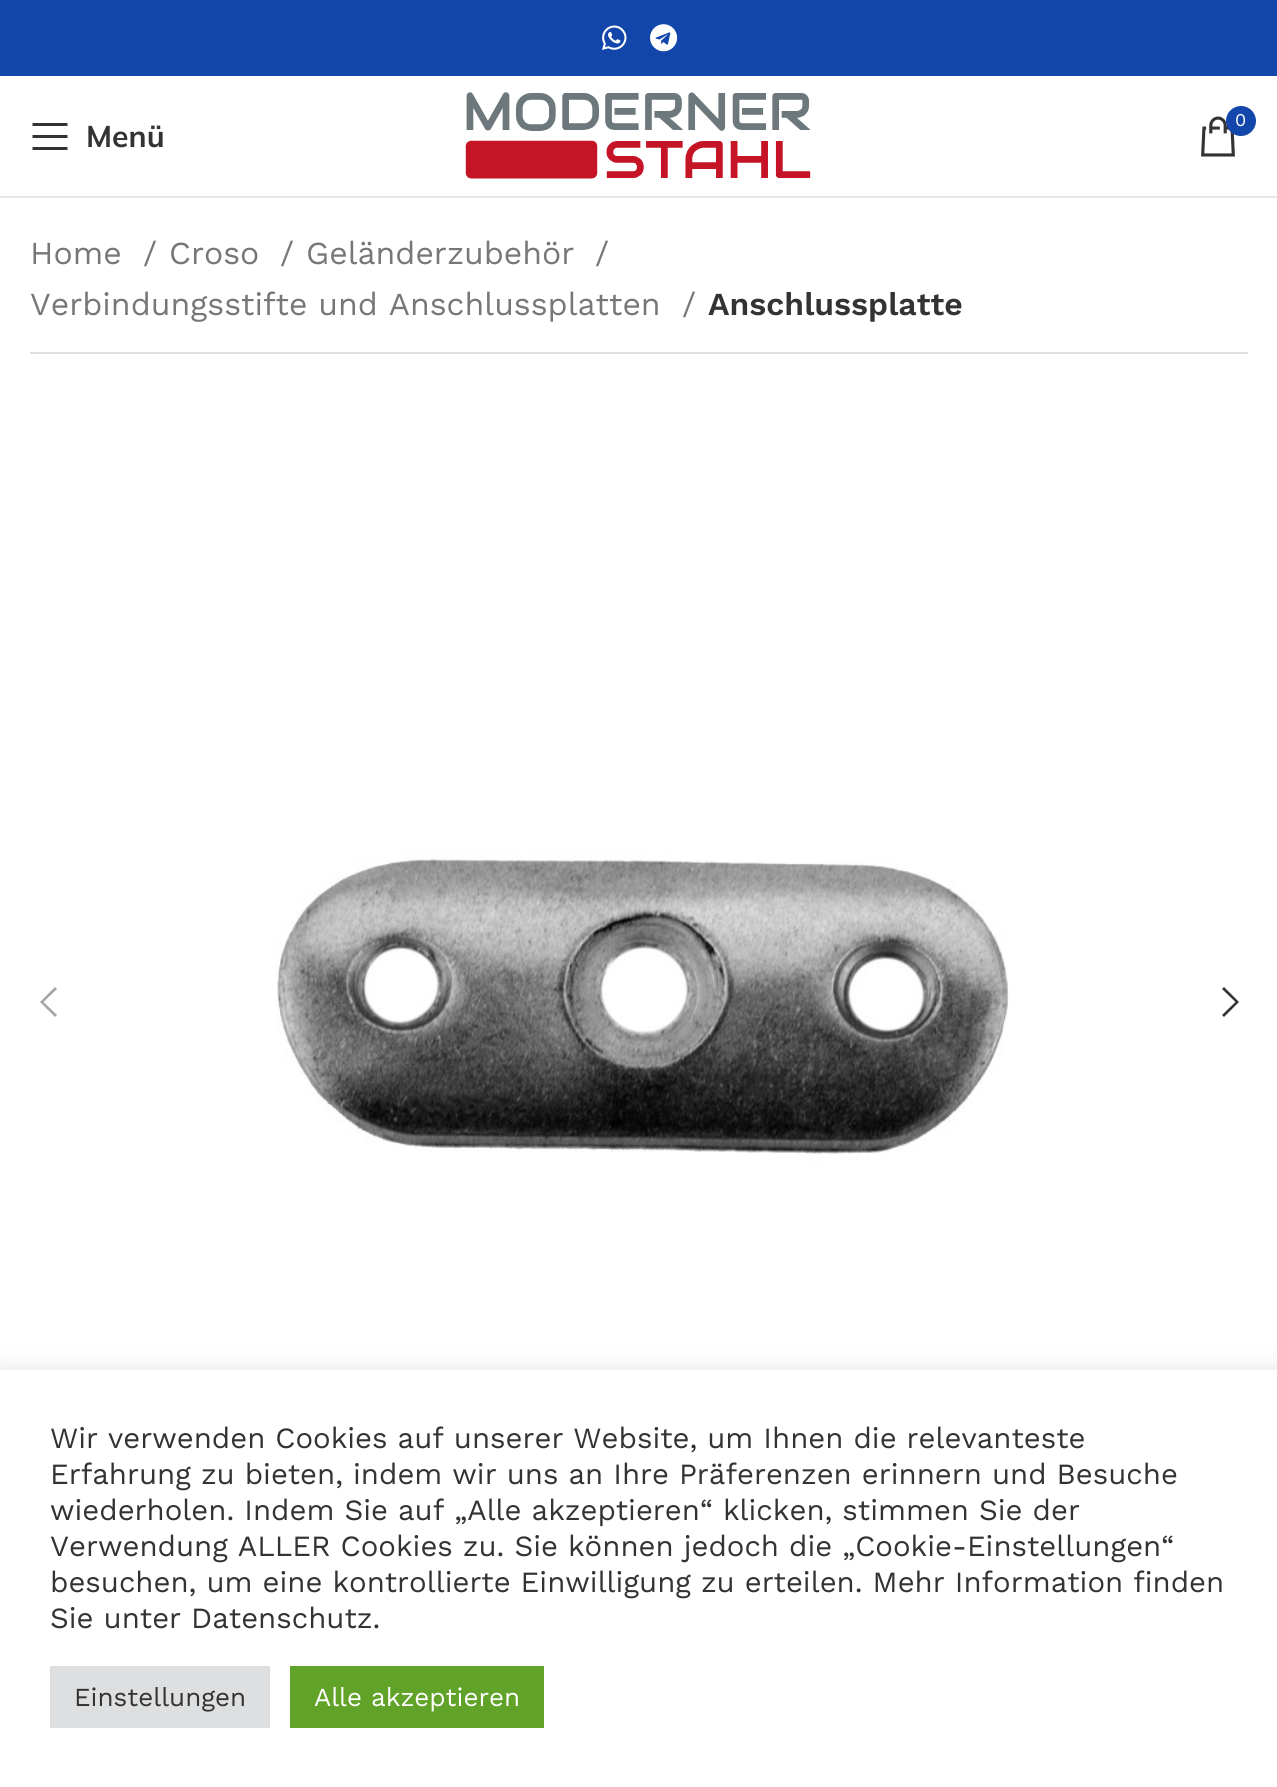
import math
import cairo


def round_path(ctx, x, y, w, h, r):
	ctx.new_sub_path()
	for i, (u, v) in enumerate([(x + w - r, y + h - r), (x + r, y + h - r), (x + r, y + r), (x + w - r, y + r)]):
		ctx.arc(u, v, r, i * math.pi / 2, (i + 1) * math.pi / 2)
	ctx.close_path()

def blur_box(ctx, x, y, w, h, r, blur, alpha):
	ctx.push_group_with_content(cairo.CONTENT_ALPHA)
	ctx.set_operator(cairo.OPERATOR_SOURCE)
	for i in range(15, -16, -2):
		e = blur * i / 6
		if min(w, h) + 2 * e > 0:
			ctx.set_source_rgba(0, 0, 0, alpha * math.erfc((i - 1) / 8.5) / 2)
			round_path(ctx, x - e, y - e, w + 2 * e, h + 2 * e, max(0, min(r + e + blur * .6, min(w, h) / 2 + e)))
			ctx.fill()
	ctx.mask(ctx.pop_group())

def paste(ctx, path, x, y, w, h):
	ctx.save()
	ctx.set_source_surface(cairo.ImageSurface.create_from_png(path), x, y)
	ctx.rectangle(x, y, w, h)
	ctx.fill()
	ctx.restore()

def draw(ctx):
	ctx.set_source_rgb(1, 1, 1)
	ctx.paint()
	ctx.set_source_rgb(0.071, 0.275, 0.671)
	ctx.rectangle(0, 0, 1277, 76)
	ctx.fill()
	paste(ctx, 'media/1.png', 602, 25, 25, 25)
	paste(ctx, 'media/2.png', 650, 24, 28, 28)
	ctx.set_source_rgb(0.91, 0.91, 0.91)
	ctx.rectangle(0, 196, 1277, 2)
	ctx.fill()
	paste(ctx, 'media/3.png', 465, 92, 346, 87)
	paste(ctx, 'media/4.png', 1201, 116, 34, 41)
	ctx.set_source_rgb(0.071, 0.275, 0.671)
	ctx.arc(1241, 121, 15, 0, 2 * math.pi)
	ctx.fill()
	ctx.select_font_face('Work Sans')
	ctx.set_font_size(18)
	ctx.set_source_rgb(1, 1, 1)
	ctx.move_to(1235, 126)
	ctx.show_text('0')
	ctx.set_source_rgb(0.2, 0.2, 0.2)
	ctx.new_path()
	ctx.move_to(32.5, 126)
	ctx.line_to(67.5, 126)
	ctx.line_to(67.5, 123)
	ctx.line_to(32.5, 123)
	ctx.close_path()
	ctx.move_to(32.5, 138)
	ctx.line_to(67.5, 138)
	ctx.line_to(67.5, 135)
	ctx.line_to(32.5, 135)
	ctx.close_path()
	ctx.move_to(32.5, 150)
	ctx.line_to(67.5, 150)
	ctx.line_to(67.5, 147)
	ctx.line_to(32.5, 147)
	ctx.close_path()
	ctx.fill()
	ctx.select_font_face('Mulish', cairo.FONT_SLANT_NORMAL, cairo.FONT_WEIGHT_BOLD)
	ctx.set_font_size(30)
	ctx.move_to(86, 147)
	ctx.show_text('Menü')
	ctx.select_font_face('Work Sans')
	ctx.set_font_size(32)
	ctx.set_source_rgb(0.467, 0.467, 0.467)
	for x, y, s in [
		(30, 264, 'Home'),
		(143, 264, '/'),
		(169, 264, 'Croso'),
		(280, 264, '/'),
		(306, 264, 'Geländerzubehör'),
		(595, 264, '/'),
		(30, 315, 'Verbindungsstifte und Anschlussplatten'),
		(682, 315, '/'),
	]:
		ctx.move_to(x, y)
		ctx.show_text(s)
	ctx.select_font_face('Work Sans SemiBold')
	ctx.set_source_rgb(0.2, 0.2, 0.2)
	ctx.move_to(708, 315)
	ctx.show_text('Anschlussplatte')
	ctx.set_source_rgb(0.878, 0.878, 0.878)
	ctx.rectangle(30, 352, 1218, 2)
	ctx.fill()
	paste(ctx, 'media/5.png', 94, 852, 915, 518)
	ctx.set_source_rgb(0.647, 0.647, 0.647)
	ctx.new_path()
	ctx.move_to(57, 989)
	ctx.line_to(55, 987)
	ctx.line_to(40, 1002)
	ctx.line_to(55, 1017)
	ctx.line_to(57, 1015)
	ctx.line_to(43.5, 1002)
	ctx.close_path()
	ctx.fill()
	ctx.set_source_rgb(0.2, 0.2, 0.2)
	ctx.new_path()
	ctx.move_to(1222, 989)
	ctx.line_to(1235.5, 1002)
	ctx.line_to(1222, 1015)
	ctx.line_to(1224, 1017)
	ctx.line_to(1239, 1002)
	ctx.line_to(1224, 987)
	ctx.close_path()
	ctx.fill()
	ctx.set_source_rgb(0.675, 0.671, 0.671)
	blur_box(ctx, 0, 1368, 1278, 418, 0, 10, 0.3)
	ctx.set_source_rgb(1, 1, 1)
	ctx.rectangle(0, 1370, 1277, 417)
	ctx.fill()
	ctx.select_font_face('Work Sans')
	ctx.set_font_size(29.35)
	ctx.set_source_rgb(0.2, 0.2, 0.2)
	for x, y, s in [
		(50, 1448, 'Wir verwenden Cookies auf unserer Website, um Ihnen die relevanteste'),
		(50, 1484, 'Erfahrung zu bieten, indem wir uns an Ihre Präferenzen erinnern und Besuche'),
		(50, 1520, 'wiederholen. Indem Sie auf „Alle akzeptieren“ klicken, stimmen Sie der'),
		(50, 1556, 'Verwendung ALLER Cookies zu. Sie können jedoch die „Cookie-Einstellungen“'),
		(50, 1592, 'besuchen, um eine kontrollierte Einwilligung zu erteilen. Mehr Information finden'),
		(50, 1628, 'Sie unter Datenschutz.'),
	]:
		ctx.move_to(x, y)
		ctx.show_text(s)
	ctx.set_source_rgb(0.871, 0.875, 0.878)
	ctx.rectangle(50, 1666, 220, 62)
	ctx.fill()
	ctx.set_font_size(26)
	ctx.set_source_rgb(0.2, 0.2, 0.2)
	ctx.move_to(74, 1706)
	ctx.show_text('Einstellungen')
	ctx.set_source_rgb(0.38, 0.635, 0.161)
	ctx.rectangle(290, 1666, 254, 62)
	ctx.fill()
	ctx.set_source_rgb(1, 1, 1)
	ctx.move_to(314, 1706)
	ctx.show_text('Alle akzeptieren')


surface = cairo.ImageSurface(cairo.FORMAT_RGB24, 1277, 1787)
ctx = cairo.Context(surface)
options = cairo.FontOptions()
options.set_hint_metrics(cairo.HINT_METRICS_OFF)
options.set_hint_style(cairo.HINT_STYLE_NONE)
ctx.set_font_options(options)
ctx.set_miter_limit(4)
draw(ctx)
surface.write_to_png('image.png')
